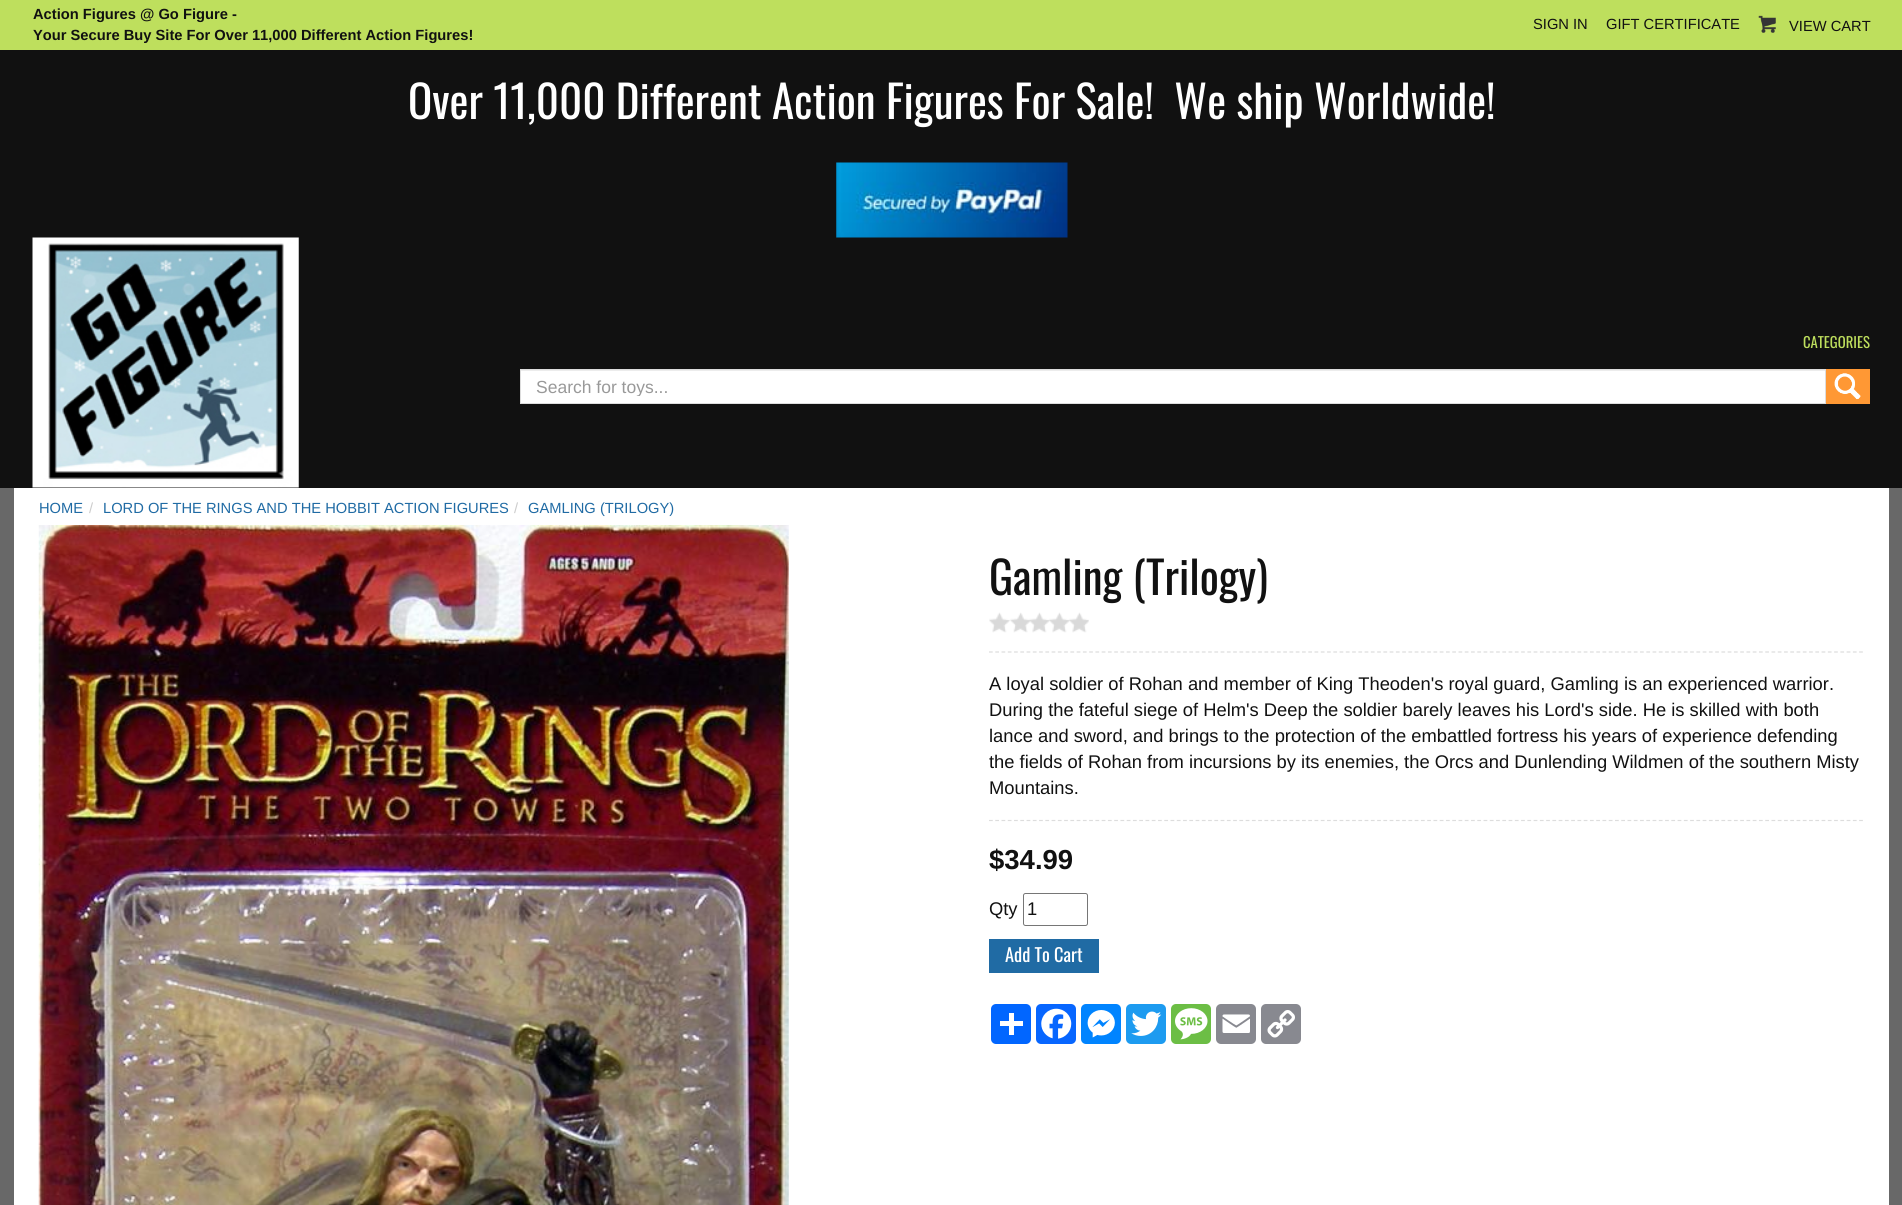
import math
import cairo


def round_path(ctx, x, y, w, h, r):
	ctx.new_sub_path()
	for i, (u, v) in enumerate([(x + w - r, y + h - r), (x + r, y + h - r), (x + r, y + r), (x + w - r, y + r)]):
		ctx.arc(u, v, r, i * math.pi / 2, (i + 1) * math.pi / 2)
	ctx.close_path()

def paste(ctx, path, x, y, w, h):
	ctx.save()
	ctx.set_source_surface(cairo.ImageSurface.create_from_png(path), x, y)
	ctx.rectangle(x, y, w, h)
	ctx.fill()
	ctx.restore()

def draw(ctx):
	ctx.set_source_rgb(0.408, 0.408, 0.408)
	ctx.paint()
	ctx.set_source_rgb(0.067, 0.067, 0.067)
	ctx.rectangle(0, 50, 1902, 438)
	ctx.fill()
	ctx.set_source_rgb(0.745, 0.875, 0.365)
	ctx.rectangle(0, 0, 1902, 50)
	ctx.fill()
	ctx.select_font_face('Liberation Sans', cairo.FONT_SLANT_NORMAL, cairo.FONT_WEIGHT_BOLD)
	ctx.set_font_size(14.7)
	ctx.set_source_rgb(0.067, 0.067, 0.067)
	ctx.move_to(33, 19)
	ctx.show_text('Action Figures @ Go Figure -')
	ctx.move_to(33, 40)
	ctx.show_text('Your Secure Buy Site For Over 11,000 Different Action Figures!')
	ctx.select_font_face('Liberation Sans')
	ctx.move_to(1533, 29)
	ctx.show_text('SIGN IN')
	ctx.move_to(1606, 29)
	ctx.show_text('GIFT CERTIFICATE')
	paste(ctx, 'media/1.png', 1758, 15, 18, 18)
	ctx.move_to(1789, 31)
	ctx.show_text('VIEW CART')
	ctx.select_font_face('Oswald')
	ctx.set_font_size(45)
	ctx.set_source_rgb(1, 1, 1)
	ctx.move_to(408, 119)
	ctx.show_text('Over 11,000 Different Action Figures For Sale!  We ship Worldwide!')
	paste(ctx, 'media/2.png', 836, 162, 232, 76)
	paste(ctx, 'media/3.png', 32, 237, 267, 251)
	ctx.set_font_size(14.7)
	ctx.set_source_rgb(0.745, 0.875, 0.365)
	ctx.move_to(1803, 348)
	ctx.show_text('CATEGORIES')
	ctx.set_source_rgb(1, 1, 1)
	ctx.rectangle(521, 371, 1304, 32)
	ctx.fill()
	ctx.set_source_rgb(0.925, 0.925, 0.925)
	ctx.rectangle(521, 370, 1304, 1)
	ctx.fill()
	ctx.rectangle(520.5, 369.5, 1305, 34)
	ctx.set_source_rgb(0.867, 0.867, 0.867)
	ctx.set_line_width(1)
	ctx.stroke()
	ctx.save()
	ctx.rectangle(536, 376, 1274, 20)
	ctx.clip()
	ctx.select_font_face('Liberation Sans')
	ctx.set_font_size(17.5)
	ctx.set_source_rgb(0.6, 0.6, 0.6)
	ctx.move_to(536, 393)
	ctx.show_text('Search for toys...')
	ctx.restore()
	ctx.set_source_rgb(1, 0.596, 0.204)
	ctx.rectangle(1826, 369, 44, 35)
	ctx.fill()
	paste(ctx, 'media/4.png', 1834, 373, 27, 27)
	ctx.set_source_rgb(1, 1, 1)
	ctx.rectangle(14, 488, 1875, 717)
	ctx.fill()
	ctx.select_font_face('Liberation Sans')
	ctx.set_source_rgb(0.125, 0.42, 0.643)
	ctx.move_to(39, 513)
	ctx.show_text('HOME')
	ctx.set_source_rgb(0.8, 0.8, 0.8)
	ctx.move_to(89, 513)
	ctx.show_text('/')
	ctx.set_source_rgb(0.125, 0.42, 0.643)
	ctx.move_to(103, 513)
	ctx.show_text('LORD OF THE RINGS AND THE HOBBIT ACTION FIGURES')
	ctx.set_source_rgb(0.8, 0.8, 0.8)
	ctx.move_to(514, 513)
	ctx.show_text('/')
	ctx.set_source_rgb(0.125, 0.42, 0.643)
	ctx.move_to(528, 513)
	ctx.show_text('GAMLING (TRILOGY)')
	paste(ctx, 'media/5.png', 38, 525, 751, 680)
	ctx.select_font_face('Oswald')
	ctx.set_font_size(45)
	ctx.set_source_rgb(0.067, 0.067, 0.067)
	ctx.move_to(989, 595)
	ctx.show_text('Gamling (Trilogy)')
	paste(ctx, 'media/6.png', 989, 612, 100, 21)
	ctx.new_path()
	ctx.move_to(989, 652)
	ctx.line_to(1864, 652)
	ctx.set_source_rgb(0.867, 0.867, 0.867)
	ctx.set_line_width(1.2)
	ctx.set_dash([3.75, 2.51])
	ctx.stroke()
	ctx.new_path()
	ctx.move_to(989, 820.5)
	ctx.line_to(1864, 820.5)
	ctx.stroke()
	ctx.select_font_face('Liberation Sans')
	ctx.set_font_size(18.35)
	ctx.set_source_rgb(0.067, 0.067, 0.067)
	for x, y, s in [
		(989, 690, 'A loyal soldier of Rohan and member of King Theoden\'s royal guard, Gamling is an experienced warrior.'),
		(989, 716, 'During the fateful siege of Helm\'s Deep the soldier barely leaves his Lord\'s side. He is skilled with both'),
		(989, 742, 'lance and sword, and brings to the protection of the embattled fortress his years of experience defending'),
		(989, 768, 'the fields of Rohan from incursions by its enemies, the Orcs and Dunlending Wildmen of the southern Misty'),
		(989, 794, 'Mountains.'),
	]:
		ctx.move_to(x, y)
		ctx.show_text(s)
	ctx.select_font_face('Liberation Sans', cairo.FONT_SLANT_NORMAL, cairo.FONT_WEIGHT_BOLD)
	ctx.set_font_size(27.5)
	ctx.move_to(989, 869)
	ctx.show_text('$34.99')
	ctx.select_font_face('Liberation Sans')
	ctx.set_font_size(18.35)
	ctx.move_to(989, 915)
	ctx.show_text('Qty')
	round_path(ctx, 1023.5, 893.5, 64, 32, 2)
	ctx.set_source_rgb(0.463, 0.463, 0.463)
	ctx.set_line_width(1)
	ctx.set_dash([])
	ctx.stroke()
	ctx.set_source_rgb(0.067, 0.067, 0.067)
	ctx.move_to(1027, 915)
	ctx.show_text('1')
	ctx.set_source_rgb(0.125, 0.42, 0.643)
	ctx.rectangle(989, 939, 110, 34)
	ctx.fill()
	ctx.select_font_face('Oswald')
	ctx.set_source_rgb(1, 1, 1)
	ctx.move_to(1005, 962)
	ctx.show_text('Add To Cart')
	ctx.set_source_rgb(0.004, 0.4, 1)
	round_path(ctx, 991, 1004, 40, 40, 5)
	ctx.fill()
	ctx.set_source_rgb(1, 1, 1)
	ctx.rectangle(1009, 1013, 5, 22)
	ctx.fill()
	ctx.rectangle(1000, 1021, 23, 5)
	ctx.fill()
	ctx.set_source_rgb(0.031, 0.4, 1)
	round_path(ctx, 1036, 1004, 40, 40, 5)
	ctx.fill()
	paste(ctx, 'media/7.png', 1041, 1008, 31, 31)
	ctx.set_source_rgb(0, 0.518, 1)
	round_path(ctx, 1081, 1004, 40, 40, 5)
	ctx.fill()
	paste(ctx, 'media/8.png', 1087, 1010, 28, 28)
	ctx.set_source_rgb(0.114, 0.608, 0.941)
	round_path(ctx, 1126, 1004, 40, 40, 5)
	ctx.fill()
	paste(ctx, 'media/9.png', 1131, 1011, 31, 25)
	ctx.set_source_rgb(0.424, 0.745, 0.271)
	round_path(ctx, 1171, 1004, 40, 40, 5)
	ctx.fill()
	paste(ctx, 'media/10.png', 1175, 1008, 33, 32)
	ctx.set_source_rgb(0.533, 0.537, 0.565)
	round_path(ctx, 1216, 1004, 40, 40, 5)
	ctx.fill()
	paste(ctx, 'media/11.png', 1222, 1014, 28, 19)
	round_path(ctx, 1261, 1004, 40, 40, 5)
	ctx.fill()
	paste(ctx, 'media/12.png', 1267, 1010, 28, 28)


surface = cairo.ImageSurface(cairo.FORMAT_RGB24, 1902, 1205)
ctx = cairo.Context(surface)
options = cairo.FontOptions()
options.set_hint_metrics(cairo.HINT_METRICS_OFF)
options.set_hint_style(cairo.HINT_STYLE_NONE)
ctx.set_font_options(options)
ctx.set_miter_limit(4)
draw(ctx)
surface.write_to_png('image.png')
